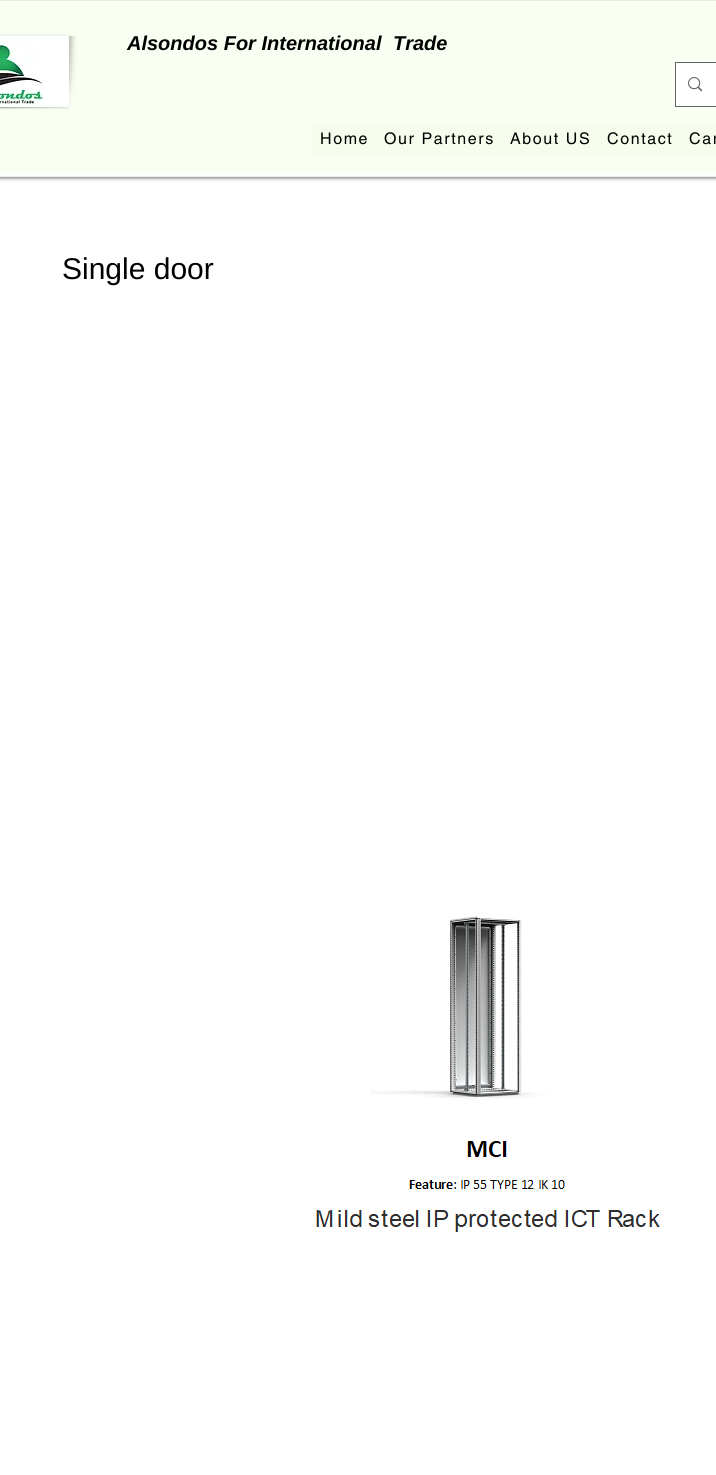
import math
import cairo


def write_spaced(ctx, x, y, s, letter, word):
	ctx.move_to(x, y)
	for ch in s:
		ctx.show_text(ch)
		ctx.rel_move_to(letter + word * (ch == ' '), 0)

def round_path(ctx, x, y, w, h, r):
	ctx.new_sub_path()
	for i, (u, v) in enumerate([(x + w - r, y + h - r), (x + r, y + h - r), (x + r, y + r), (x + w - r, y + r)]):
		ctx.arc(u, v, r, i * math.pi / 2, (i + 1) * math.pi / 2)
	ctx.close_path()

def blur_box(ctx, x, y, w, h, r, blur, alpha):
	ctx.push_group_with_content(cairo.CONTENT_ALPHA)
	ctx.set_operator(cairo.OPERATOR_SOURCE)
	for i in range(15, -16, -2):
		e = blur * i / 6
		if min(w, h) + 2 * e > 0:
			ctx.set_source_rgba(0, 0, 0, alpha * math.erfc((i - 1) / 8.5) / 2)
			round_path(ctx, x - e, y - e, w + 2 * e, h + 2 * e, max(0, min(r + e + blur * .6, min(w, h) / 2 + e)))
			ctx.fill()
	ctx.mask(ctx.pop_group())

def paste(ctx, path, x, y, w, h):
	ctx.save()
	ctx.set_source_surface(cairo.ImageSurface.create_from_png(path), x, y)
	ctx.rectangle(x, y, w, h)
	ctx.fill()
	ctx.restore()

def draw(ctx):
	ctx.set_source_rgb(1, 1, 1)
	ctx.paint()
	ctx.set_source_rgb(0.973, 1, 0.949)
	ctx.rectangle(0, 1, 716, 173)
	ctx.fill()
	ctx.save()
	ctx.rectangle(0, 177, 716, 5)
	ctx.clip()
	ctx.set_source_rgb(0, 0, 0)
	blur_box(ctx, 0, 1, 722, 177, 0, 2, 0.6)
	ctx.restore()
	ctx.set_source_rgb(0.91, 0.937, 0.886)
	ctx.rectangle(0, 0, 716, 1)
	ctx.fill()
	ctx.set_source_rgb(0.933, 0.933, 0.933)
	ctx.rectangle(0, 176, 716, 1)
	ctx.fill()
	ctx.set_source_rgb(0, 0, 0)
	blur_box(ctx, -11, 36, 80, 71, 3, 2.5, 0.1)
	ctx.set_source_rgb(1, 1, 1)
	round_path(ctx, -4, 37, 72, 69, 2)
	ctx.fill_preserve()
	ctx.stroke()
	paste(ctx, 'media/1.png', 0, 42, 44, 63)
	paste(ctx, 'media/2.png', 0, 107, 69, 2)
	paste(ctx, 'media/3.png', 69, 36, 8, 58)
	ctx.select_font_face('Liberation Sans', cairo.FONT_SLANT_ITALIC, cairo.FONT_WEIGHT_BOLD)
	ctx.set_font_size(20)
	ctx.set_source_rgb(0, 0, 0)
	ctx.move_to(127, 50)
	ctx.show_text('Alsondos For International')
	ctx.move_to(393, 50)
	ctx.show_text('Trade')
	ctx.set_source_rgb(0.961, 0.992, 0.929)
	ctx.rectangle(312, 124, 404, 31)
	ctx.fill()
	ctx.select_font_face('helvetica')
	ctx.set_font_size(16)
	ctx.set_source_rgb(0, 0, 0)
	for x, y, s in [
		(320, 144, 'Home'),
		(384, 144, 'Our Partners'),
		(510, 144, 'About US'),
		(607, 144, 'Contact'),
		(689, 144, 'Car'),
	]:
		write_spaced(ctx, x, y, s, 1.6, 0)
	ctx.rectangle(675.5, 62.5, 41, 44)
	ctx.set_source_rgb(0.388, 0.4, 0.38)
	ctx.set_line_width(1)
	ctx.stroke()
	ctx.set_source_rgb(1, 1, 1)
	ctx.rectangle(676, 63, 40, 43)
	ctx.fill()
	paste(ctx, 'media/4.png', 688, 77, 14, 15)
	ctx.select_font_face('Liberation Sans')
	ctx.set_font_size(30)
	ctx.set_source_rgb(0, 0, 0)
	ctx.move_to(62, 279)
	ctx.show_text('Single door')
	paste(ctx, 'media/5.png', 316, 916, 344, 316)


surface = cairo.ImageSurface(cairo.FORMAT_RGB24, 716, 1475)
ctx = cairo.Context(surface)
options = cairo.FontOptions()
options.set_hint_metrics(cairo.HINT_METRICS_OFF)
options.set_hint_style(cairo.HINT_STYLE_NONE)
ctx.set_font_options(options)
ctx.set_miter_limit(4)
draw(ctx)
surface.write_to_png('image.png')
